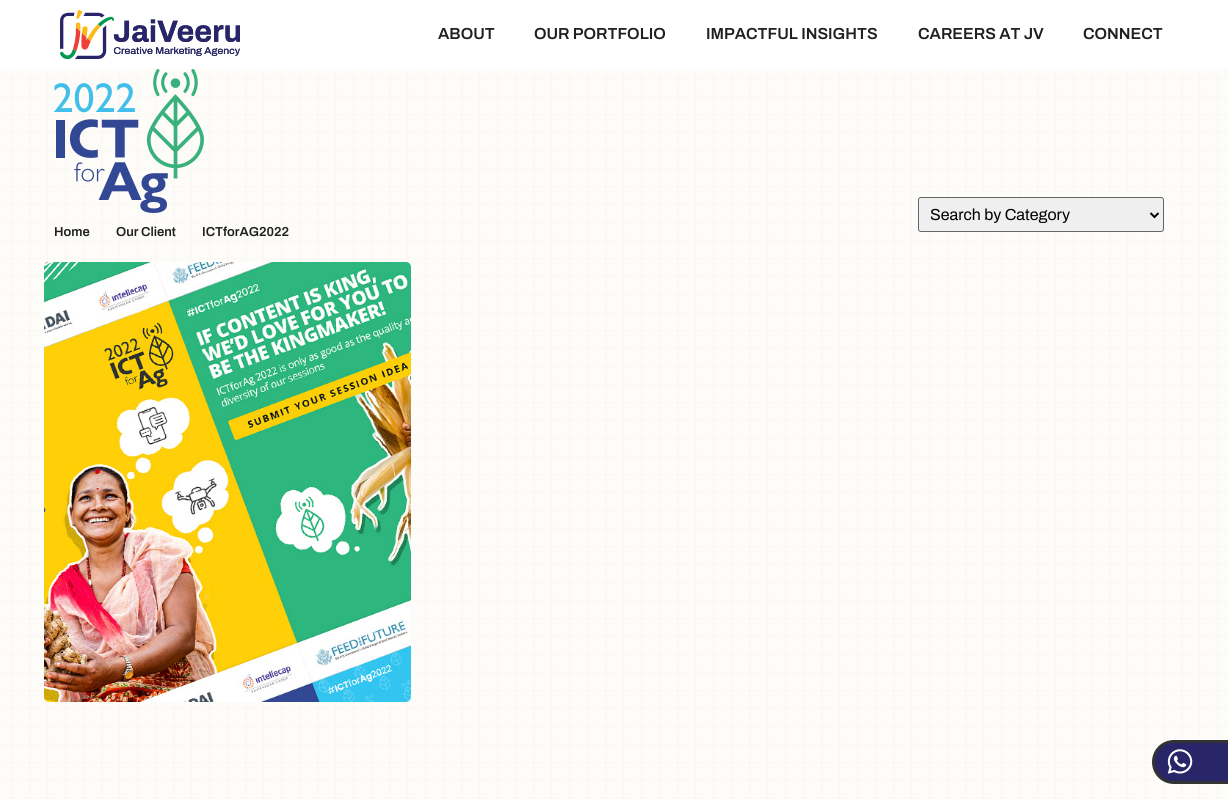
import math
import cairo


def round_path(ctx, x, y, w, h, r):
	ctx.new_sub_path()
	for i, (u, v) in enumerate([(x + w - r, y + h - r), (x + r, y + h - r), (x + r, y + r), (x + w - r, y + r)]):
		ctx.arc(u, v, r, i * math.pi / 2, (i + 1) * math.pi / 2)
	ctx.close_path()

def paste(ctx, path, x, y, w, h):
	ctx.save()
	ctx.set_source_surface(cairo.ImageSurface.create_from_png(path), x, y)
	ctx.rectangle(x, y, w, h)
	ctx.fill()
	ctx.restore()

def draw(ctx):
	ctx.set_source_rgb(1, 1, 1)
	ctx.paint()
	paste(ctx, 'media/1.png', 0, 69, 1228, 730)
	paste(ctx, 'media/2.png', 60, 10, 180, 49)
	ctx.select_font_face('Archivo SemiBold')
	ctx.set_font_size(16)
	ctx.set_source_rgb(0.125, 0.125, 0.125)
	for x, y, s in [
		(438, 39, 'ABOUT'),
		(534, 39, 'OUR PORTFOLIO'),
		(706, 39, 'IMPACTFUL INSIGHTS'),
		(918, 39, 'CAREERS AT JV'),
		(1083, 39, 'CONNECT'),
	]:
		ctx.move_to(x, y)
		ctx.show_text(s)
	ctx.set_source_rgb(0.937, 0.937, 0.937)
	round_path(ctx, 918.5, 197.5, 245, 34, 2.5)
	ctx.fill_preserve()
	ctx.set_source_rgb(0.4, 0.4, 0.4)
	ctx.set_line_width(1)
	ctx.stroke()
	ctx.new_path()
	ctx.move_to(1150.5, 213)
	ctx.line_to(1154.5, 217)
	ctx.line_to(1158.5, 213)
	ctx.set_source_rgb(0, 0, 0)
	ctx.set_line_width(2)
	ctx.stroke()
	ctx.select_font_face('Archivo')
	ctx.move_to(930, 220)
	ctx.show_text('Search by Category')
	paste(ctx, 'media/3.png', 54, 69, 150, 144)
	ctx.select_font_face('Archivo SemiBold')
	ctx.set_font_size(13)
	ctx.set_source_rgb(0.125, 0.125, 0.125)
	for x, y, s in [
		(54, 236, 'Home'),
		(116, 236, 'Our Client'),
		(202, 236, 'ICTforAG2022'),
	]:
		ctx.move_to(x, y)
		ctx.show_text(s)
	paste(ctx, 'media/4.png', 44, 262, 367, 440)
	ctx.set_source_rgb(0.161, 0.145, 0.412)
	ctx.new_path()
	ctx.move_to(1174, 741.5)
	ctx.line_to(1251.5, 741.5)
	ctx.line_to(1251.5, 782.5)
	ctx.line_to(1174, 782.5)
	ctx.curve_to(1162.5, 782.5, 1153.5, 773.5, 1153.5, 762)
	ctx.curve_to(1153.5, 750.5, 1162.5, 741.5, 1174, 741.5)
	ctx.close_path()
	ctx.fill_preserve()
	ctx.set_source_rgb(0.2, 0.2, 0.2)
	ctx.set_line_width(3)
	ctx.stroke()
	paste(ctx, 'media/5.png', 1167, 749, 26, 25)


surface = cairo.ImageSurface(cairo.FORMAT_RGB24, 1228, 799)
ctx = cairo.Context(surface)
options = cairo.FontOptions()
options.set_hint_metrics(cairo.HINT_METRICS_OFF)
options.set_hint_style(cairo.HINT_STYLE_NONE)
ctx.set_font_options(options)
ctx.set_miter_limit(4)
draw(ctx)
surface.write_to_png('image.png')
